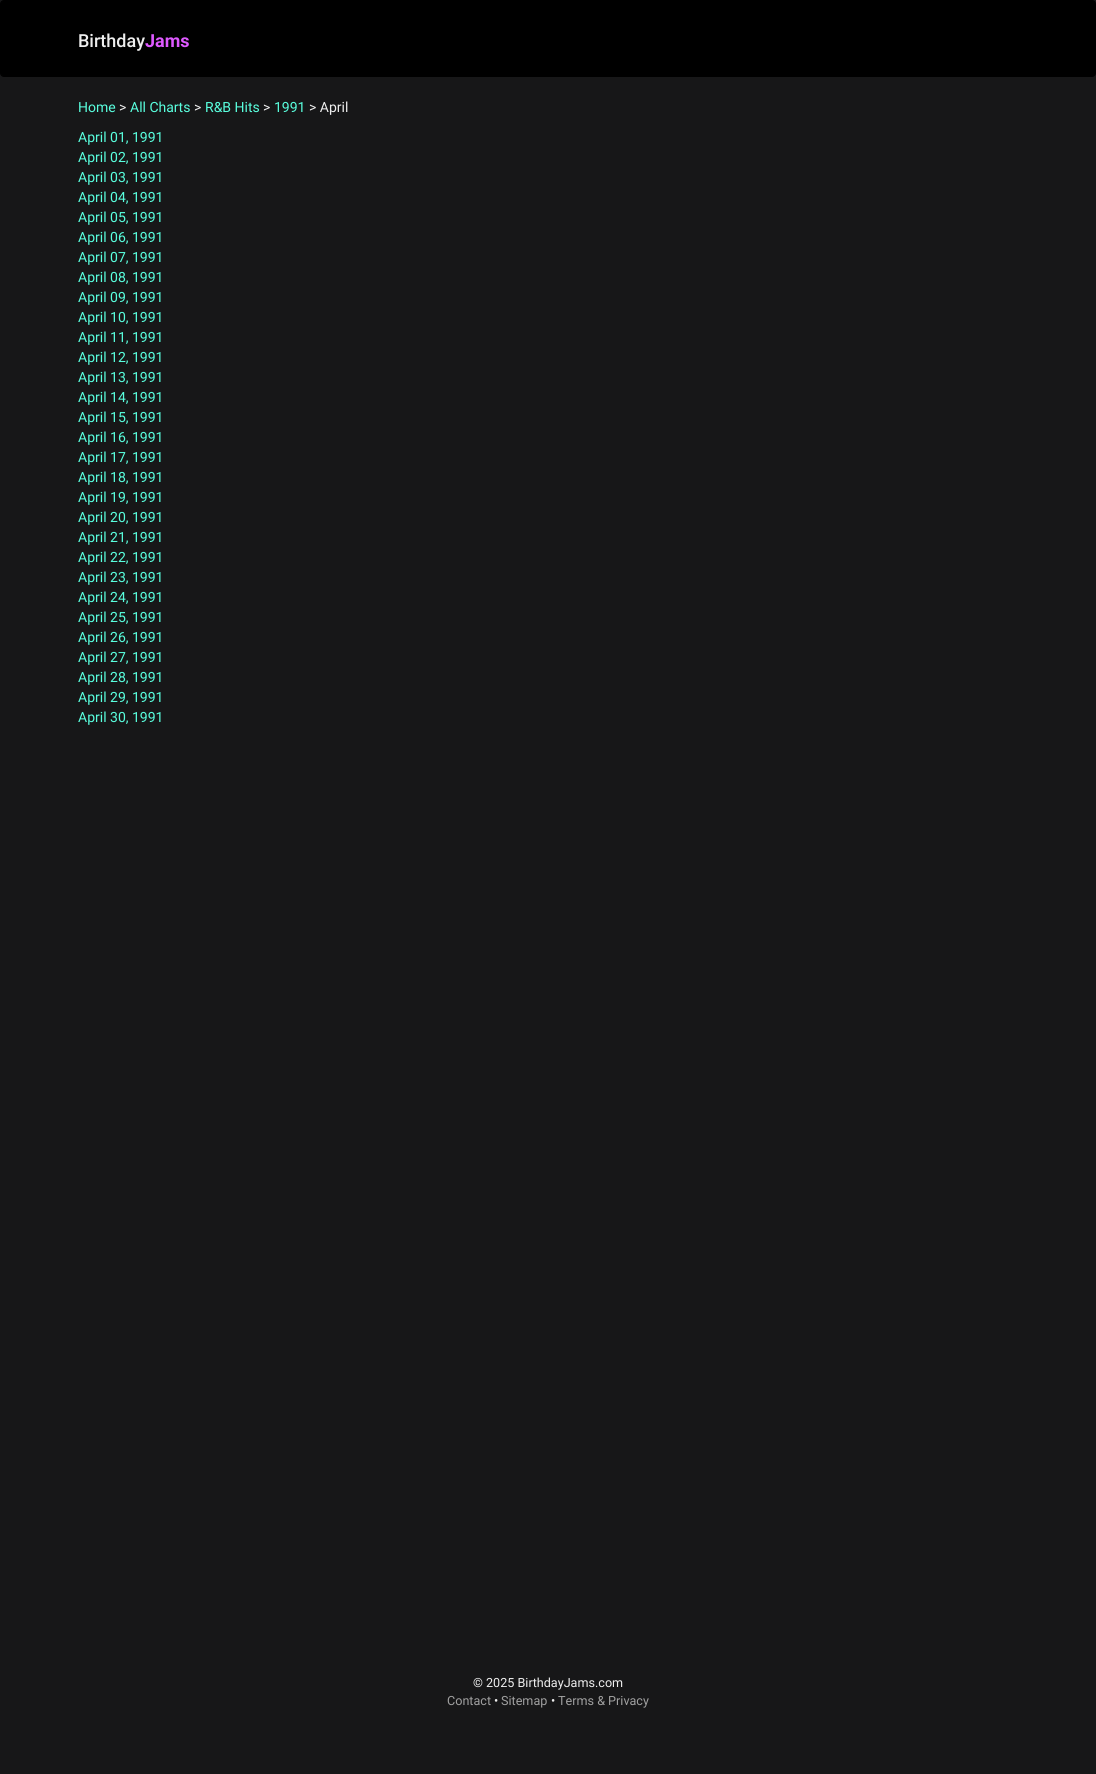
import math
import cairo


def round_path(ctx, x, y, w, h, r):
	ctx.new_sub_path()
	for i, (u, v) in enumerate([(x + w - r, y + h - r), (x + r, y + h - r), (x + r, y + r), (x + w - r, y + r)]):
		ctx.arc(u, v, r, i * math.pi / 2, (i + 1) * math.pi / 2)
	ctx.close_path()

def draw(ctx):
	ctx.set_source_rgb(0.09, 0.09, 0.094)
	ctx.paint()
	ctx.set_source_rgb(0, 0, 0)
	round_path(ctx, 0.5, 0.5, 1095, 76, 3.5)
	ctx.fill_preserve()
	ctx.set_line_width(1)
	ctx.stroke()
	ctx.select_font_face('Roboto Medium')
	ctx.set_font_size(18)
	ctx.set_source_rgb(0.933, 0.933, 0.933)
	ctx.move_to(78, 47)
	ctx.show_text('Birthday')
	ctx.select_font_face('Roboto', cairo.FONT_SLANT_NORMAL, cairo.FONT_WEIGHT_BOLD)
	ctx.set_source_rgb(0.871, 0.349, 1)
	ctx.move_to(145, 47)
	ctx.show_text('Jams')
	ctx.select_font_face('Roboto')
	ctx.set_font_size(14)
	ctx.set_source_rgb(0.349, 1, 0.871)
	ctx.move_to(78, 112)
	ctx.show_text('Home')
	ctx.set_source_rgb(0.933, 0.933, 0.933)
	ctx.move_to(119, 112)
	ctx.show_text('>')
	ctx.set_source_rgb(0.349, 1, 0.871)
	ctx.move_to(130, 112)
	ctx.show_text('All Charts')
	ctx.set_source_rgb(0.933, 0.933, 0.933)
	ctx.move_to(194, 112)
	ctx.show_text('>')
	ctx.set_source_rgb(0.349, 1, 0.871)
	ctx.move_to(205, 112)
	ctx.show_text('R&B Hits')
	ctx.set_source_rgb(0.933, 0.933, 0.933)
	ctx.move_to(263, 112)
	ctx.show_text('>')
	ctx.set_source_rgb(0.349, 1, 0.871)
	ctx.move_to(274, 112)
	ctx.show_text('1991')
	ctx.set_source_rgb(0.933, 0.933, 0.933)
	ctx.move_to(309, 112)
	ctx.show_text('> April')
	ctx.set_source_rgb(0.349, 1, 0.871)
	for x, y, s in [
		(78, 142, 'April 01, 1991'),
		(78, 162, 'April 02, 1991'),
		(78, 182, 'April 03, 1991'),
		(78, 202, 'April 04, 1991'),
		(78, 222, 'April 05, 1991'),
		(78, 242, 'April 06, 1991'),
		(78, 262, 'April 07, 1991'),
		(78, 282, 'April 08, 1991'),
		(78, 302, 'April 09, 1991'),
		(78, 322, 'April 10, 1991'),
		(78, 342, 'April 11, 1991'),
		(78, 362, 'April 12, 1991'),
		(78, 382, 'April 13, 1991'),
		(78, 402, 'April 14, 1991'),
		(78, 422, 'April 15, 1991'),
		(78, 442, 'April 16, 1991'),
		(78, 462, 'April 17, 1991'),
		(78, 482, 'April 18, 1991'),
		(78, 502, 'April 19, 1991'),
		(78, 522, 'April 20, 1991'),
		(78, 542, 'April 21, 1991'),
		(78, 562, 'April 22, 1991'),
		(78, 582, 'April 23, 1991'),
		(78, 602, 'April 24, 1991'),
		(78, 622, 'April 25, 1991'),
		(78, 642, 'April 26, 1991'),
		(78, 662, 'April 27, 1991'),
		(78, 682, 'April 28, 1991'),
		(78, 702, 'April 29, 1991'),
		(78, 722, 'April 30, 1991'),
	]:
		ctx.move_to(x, y)
		ctx.show_text(s)
	ctx.set_font_size(12.6)
	ctx.set_source_rgb(0.933, 0.933, 0.933)
	ctx.move_to(473, 1687)
	ctx.show_text('© 2025 BirthdayJams.com')
	ctx.set_source_rgb(0.627, 0.627, 0.627)
	ctx.move_to(447, 1705)
	ctx.show_text('Contact')
	ctx.set_source_rgb(0.933, 0.933, 0.933)
	ctx.move_to(494, 1705)
	ctx.show_text('•')
	ctx.set_source_rgb(0.627, 0.627, 0.627)
	ctx.move_to(501, 1705)
	ctx.show_text('Sitemap')
	ctx.set_source_rgb(0.933, 0.933, 0.933)
	ctx.move_to(551, 1705)
	ctx.show_text('•')
	ctx.set_source_rgb(0.627, 0.627, 0.627)
	ctx.move_to(558, 1705)
	ctx.show_text('Terms & Privacy')


surface = cairo.ImageSurface(cairo.FORMAT_RGB24, 1096, 1774)
ctx = cairo.Context(surface)
options = cairo.FontOptions()
options.set_hint_metrics(cairo.HINT_METRICS_OFF)
options.set_hint_style(cairo.HINT_STYLE_NONE)
ctx.set_font_options(options)
ctx.set_miter_limit(4)
draw(ctx)
surface.write_to_png('image.png')
